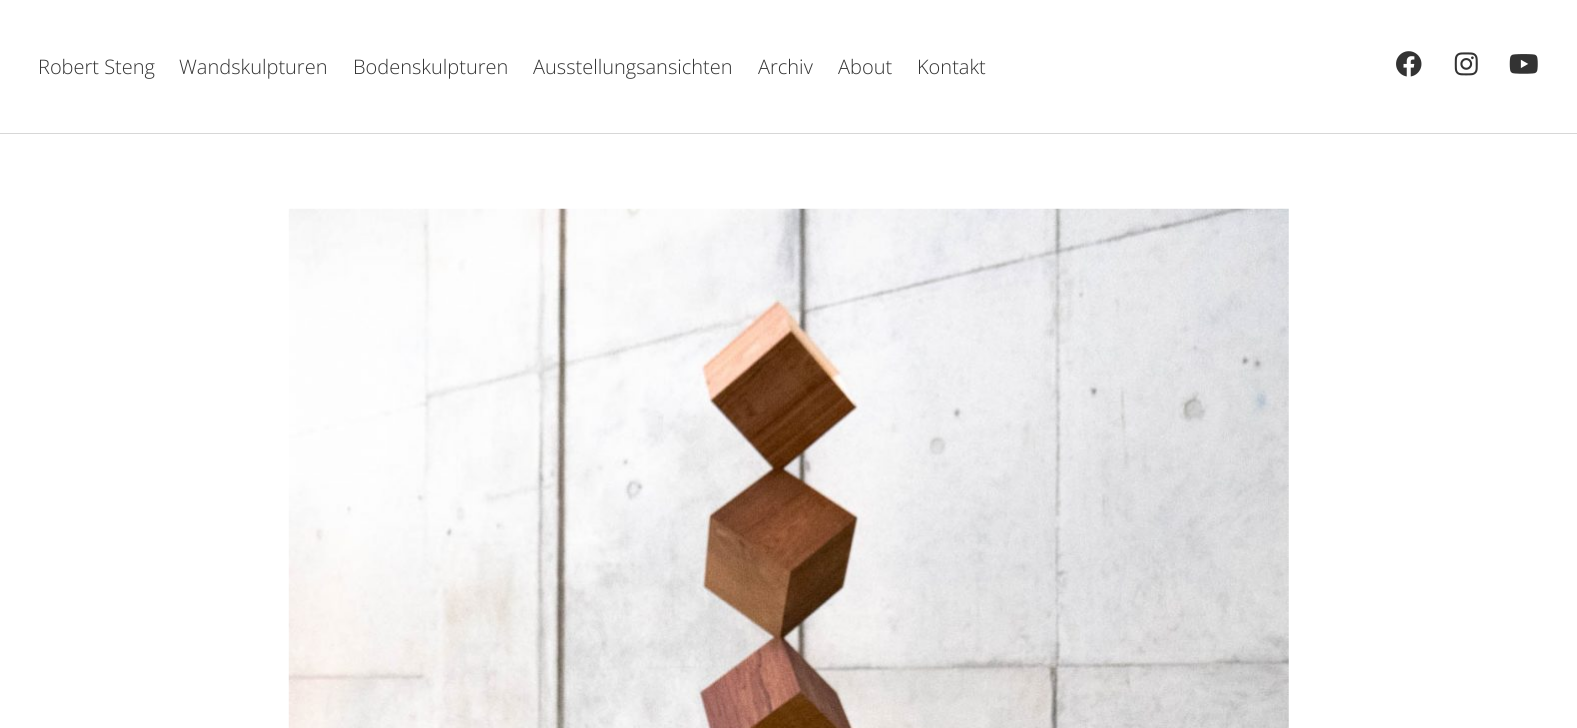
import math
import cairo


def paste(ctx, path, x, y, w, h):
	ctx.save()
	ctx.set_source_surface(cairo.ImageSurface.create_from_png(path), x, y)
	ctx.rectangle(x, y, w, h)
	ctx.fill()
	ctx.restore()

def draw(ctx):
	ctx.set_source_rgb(1, 1, 1)
	ctx.paint()
	ctx.set_source_rgb(0.843, 0.843, 0.843)
	ctx.rectangle(0, 133, 1577, 1)
	ctx.fill()
	ctx.select_font_face('Open Sans Light')
	ctx.set_font_size(20)
	ctx.set_source_rgb(0.2, 0.2, 0.2)
	for x, y, s in [
		(38, 74, 'Robert Steng'),
		(179, 74, 'Wandskulpturen'),
		(353, 74, 'Bodenskulpturen'),
		(533, 74, 'Ausstellungsansichten'),
		(758, 74, 'Archiv'),
		(838, 74, 'About'),
		(917, 74, 'Kontakt'),
	]:
		ctx.move_to(x, y)
		ctx.show_text(s)
	paste(ctx, 'media/1.png', 1396, 51, 26, 26)
	paste(ctx, 'media/2.png', 1454, 52, 24, 24)
	paste(ctx, 'media/3.png', 1509, 54, 29, 20)
	paste(ctx, 'media/4.png', 288, 208, 1001, 520)


surface = cairo.ImageSurface(cairo.FORMAT_RGB24, 1577, 728)
ctx = cairo.Context(surface)
options = cairo.FontOptions()
options.set_hint_metrics(cairo.HINT_METRICS_OFF)
options.set_hint_style(cairo.HINT_STYLE_NONE)
ctx.set_font_options(options)
ctx.set_miter_limit(4)
draw(ctx)
surface.write_to_png('image.png')
